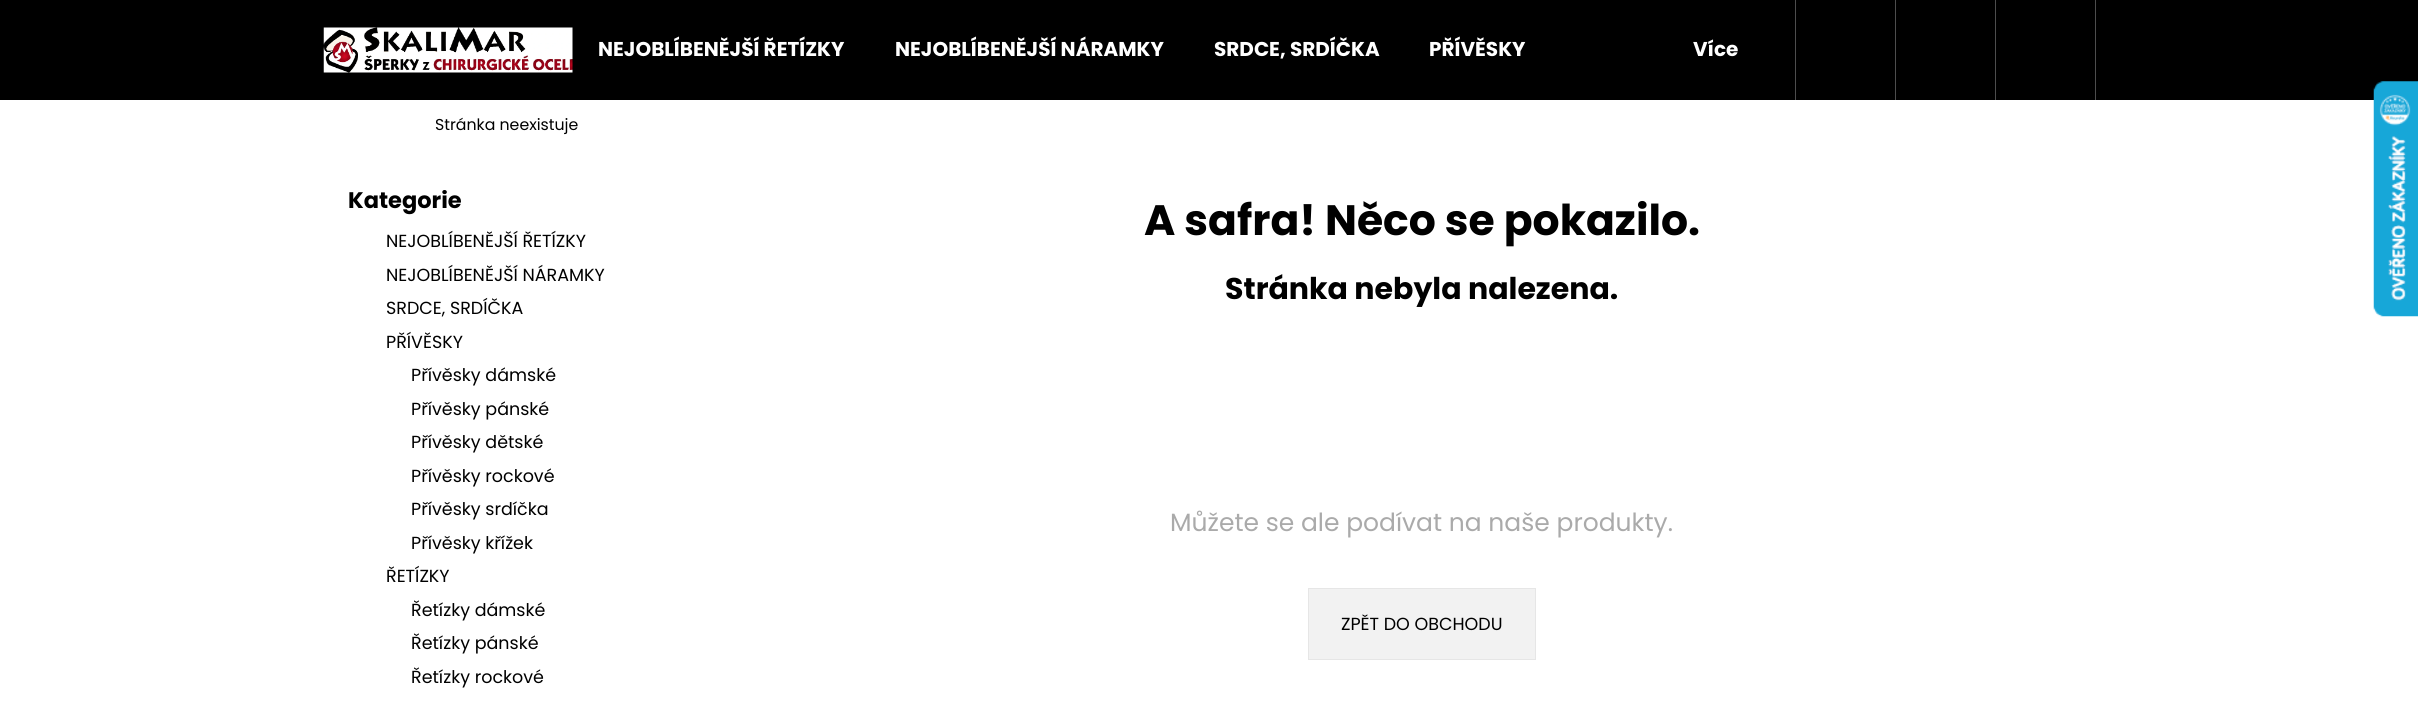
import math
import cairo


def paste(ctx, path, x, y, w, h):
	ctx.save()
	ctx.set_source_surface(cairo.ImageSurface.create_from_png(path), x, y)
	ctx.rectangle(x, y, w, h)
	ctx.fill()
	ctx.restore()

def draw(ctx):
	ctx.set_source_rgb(1, 1, 1)
	ctx.paint()
	ctx.set_source_rgb(0, 0, 0)
	ctx.rectangle(0, 0, 2418, 100)
	ctx.fill()
	paste(ctx, 'media/1.png', 323, 27, 250, 46)
	ctx.select_font_face('Poppins', cairo.FONT_SLANT_NORMAL, cairo.FONT_WEIGHT_BOLD)
	ctx.set_font_size(20)
	ctx.set_source_rgb(1, 1, 1)
	for x, y, s in [
		(598, 56, 'NEJOBLÍBENĚJŠÍ ŘETÍZKY'),
		(895, 56, 'NEJOBLÍBENĚJŠÍ NÁRAMKY'),
		(1214, 56, 'SRDCE, SRDÍČKA'),
		(1429, 56, 'PŘÍVĚSKY'),
		(1693, 56, 'Více'),
	]:
		ctx.move_to(x, y)
		ctx.show_text(s)
	ctx.set_source_rgb(0.302, 0.302, 0.302)
	ctx.rectangle(2095, 0, 1, 100)
	ctx.rectangle(1795, 0, 1, 100)
	ctx.rectangle(1895, 0, 1, 100)
	ctx.rectangle(1995, 0, 1, 100)
	ctx.fill()
	ctx.select_font_face('Poppins')
	ctx.set_font_size(15.75)
	ctx.set_source_rgb(0, 0, 0)
	ctx.move_to(435, 130)
	ctx.show_text('Stránka neexistuje')
	ctx.select_font_face('Poppins', cairo.FONT_SLANT_NORMAL, cairo.FONT_WEIGHT_BOLD)
	ctx.set_font_size(22.5)
	ctx.move_to(348, 208)
	ctx.show_text('Kategorie')
	ctx.select_font_face('Poppins')
	ctx.set_font_size(17.5)
	for x, y, s in [
		(386, 247, 'NEJOBLÍBENĚJŠÍ ŘETÍZKY'),
		(386, 281, 'NEJOBLÍBENĚJŠÍ NÁRAMKY'),
		(386, 314, 'SRDCE, SRDÍČKA'),
		(386, 348, 'PŘÍVĚSKY'),
		(411, 381, 'Přívěsky dámské'),
		(411, 415, 'Přívěsky pánské'),
		(411, 448, 'Přívěsky dětské'),
		(411, 482, 'Přívěsky rockové'),
		(411, 515, 'Přívěsky srdíčka'),
		(411, 549, 'Přívěsky křížek'),
		(386, 582, 'ŘETÍZKY'),
		(411, 616, 'Řetízky dámské'),
		(411, 649, 'Řetízky pánské'),
		(411, 683, 'Řetízky rockové'),
	]:
		ctx.move_to(x, y)
		ctx.show_text(s)
	ctx.select_font_face('Poppins', cairo.FONT_SLANT_NORMAL, cairo.FONT_WEIGHT_BOLD)
	ctx.set_font_size(42.5)
	ctx.move_to(1144, 235)
	ctx.show_text('A safra! Něco se pokazilo.')
	ctx.set_font_size(30)
	ctx.move_to(1225, 299)
	ctx.show_text('Stránka nebyla nalezena.')
	ctx.select_font_face('Poppins')
	ctx.set_font_size(25)
	ctx.set_source_rgb(0.667, 0.667, 0.667)
	ctx.move_to(1170, 531)
	ctx.show_text('Můžete se ale podívat na naše produkty.')
	ctx.set_source_rgb(0.949, 0.949, 0.949)
	ctx.rectangle(1308.5, 588.5, 227, 71)
	ctx.fill_preserve()
	ctx.set_source_rgb(0.902, 0.902, 0.902)
	ctx.set_line_width(1)
	ctx.stroke()
	ctx.set_font_size(17.5)
	ctx.set_source_rgb(0, 0, 0)
	ctx.move_to(1341, 630)
	ctx.show_text('ZPĚT DO OBCHODU')
	paste(ctx, 'media/2.png', 2373, 81, 45, 236)


surface = cairo.ImageSurface(cairo.FORMAT_RGB24, 2418, 701)
ctx = cairo.Context(surface)
options = cairo.FontOptions()
options.set_hint_metrics(cairo.HINT_METRICS_OFF)
options.set_hint_style(cairo.HINT_STYLE_NONE)
ctx.set_font_options(options)
ctx.set_miter_limit(4)
draw(ctx)
surface.write_to_png('image.png')
